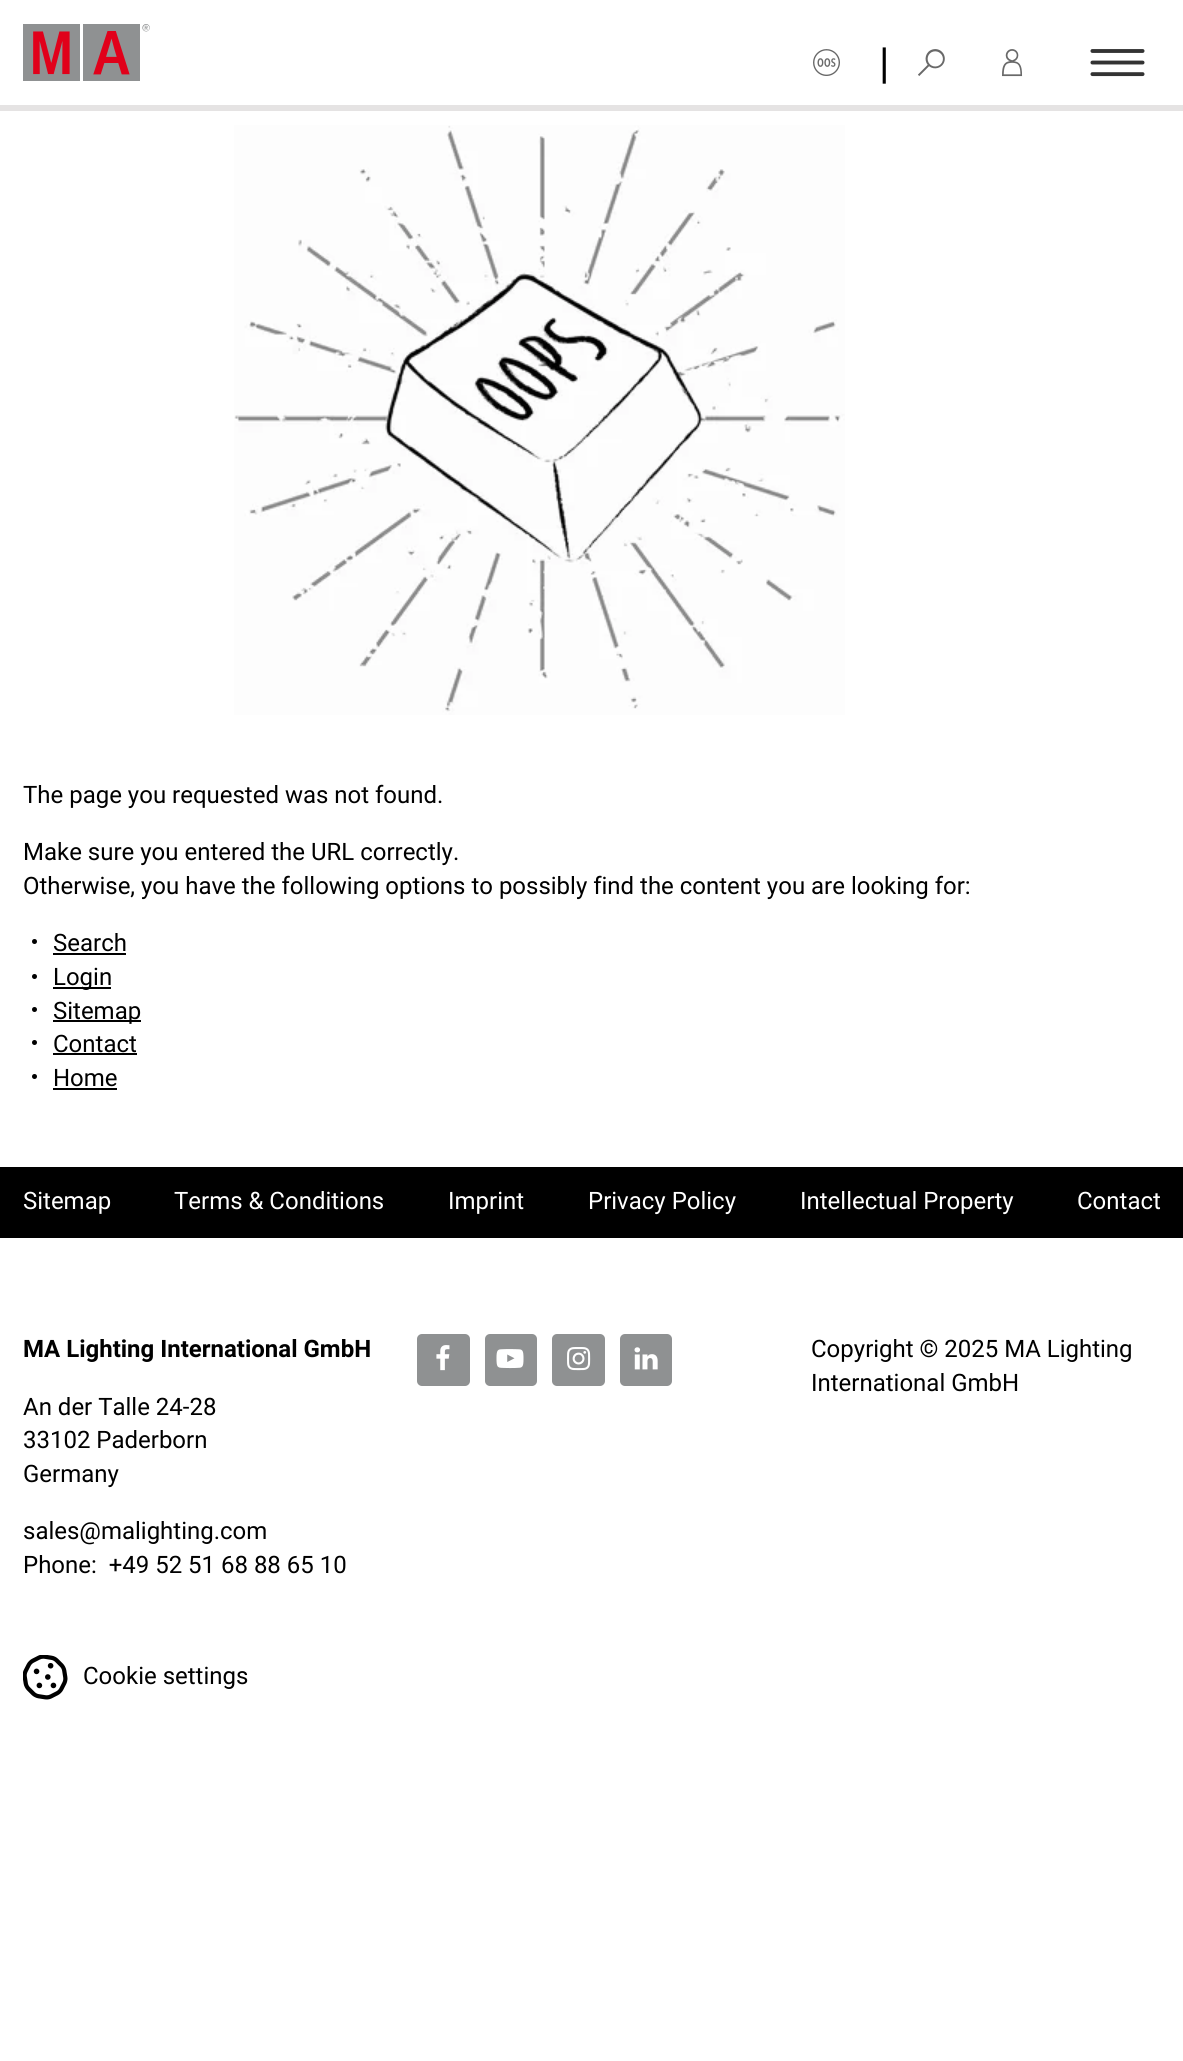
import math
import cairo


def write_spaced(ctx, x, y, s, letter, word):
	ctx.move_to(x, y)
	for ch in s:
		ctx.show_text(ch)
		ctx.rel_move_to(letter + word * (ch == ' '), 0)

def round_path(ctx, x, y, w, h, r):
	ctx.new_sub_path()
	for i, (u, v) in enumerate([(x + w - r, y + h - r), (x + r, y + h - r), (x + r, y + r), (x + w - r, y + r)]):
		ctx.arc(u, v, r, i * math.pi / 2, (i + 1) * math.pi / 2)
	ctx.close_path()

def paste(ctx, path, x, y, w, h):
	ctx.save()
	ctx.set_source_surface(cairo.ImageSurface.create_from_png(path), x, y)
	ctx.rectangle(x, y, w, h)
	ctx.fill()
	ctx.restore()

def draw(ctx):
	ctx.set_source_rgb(1, 1, 1)
	ctx.paint()
	ctx.set_source_rgb(0.898, 0.89, 0.89)
	ctx.rectangle(0, 105, 1183, 6)
	ctx.fill()
	paste(ctx, 'media/1.png', 23, 24, 127, 57)
	paste(ctx, 'media/2.png', 813, 49, 27, 27)
	ctx.select_font_face('Roboto')
	ctx.set_font_size(43)
	ctx.set_source_rgb(0, 0, 0)
	write_spaced(ctx, 879, 78, '|', -5, 0)
	paste(ctx, 'media/3.png', 918, 49, 27, 27)
	paste(ctx, 'media/4.png', 1002, 49, 21, 28)
	paste(ctx, 'media/5.png', 1090, 49, 55, 28)
	paste(ctx, 'media/6.png', 234, 125, 611, 590)
	ctx.set_font_size(24)
	for x, y, s in [
		(23, 803, 'The page you requested was not found.'),
		(23, 860, 'Make sure you entered the URL correctly.'),
		(23, 894, 'Otherwise, you have the following options to possibly find the content you are looking for:'),
	]:
		ctx.move_to(x, y)
		ctx.show_text(s)
	ctx.new_path()
	ctx.arc(34.5, 941.5, 2.5, 0, 2 * math.pi)
	ctx.fill()
	ctx.move_to(53, 951)
	ctx.show_text('Search')
	ctx.rectangle(53, 953, 73, 2)
	ctx.fill()
	ctx.arc(34.5, 976.5, 2.5, 0, 2 * math.pi)
	ctx.fill()
	ctx.rectangle(53, 987, 58, 2)
	ctx.fill()
	ctx.move_to(53, 985)
	ctx.show_text('Login')
	ctx.new_path()
	ctx.arc(34.5, 1009.5, 2.5, 0, 2 * math.pi)
	ctx.fill()
	ctx.rectangle(53, 1020, 88, 2)
	ctx.fill()
	ctx.move_to(53, 1019)
	ctx.show_text('Sitemap')
	ctx.new_path()
	ctx.arc(34.5, 1042.5, 2.5, 0, 2 * math.pi)
	ctx.fill()
	ctx.move_to(53, 1052)
	ctx.show_text('Contact')
	ctx.rectangle(53, 1053, 84, 2)
	ctx.fill()
	ctx.arc(34.5, 1076.5, 2.5, 0, 2 * math.pi)
	ctx.fill()
	ctx.move_to(53, 1086)
	ctx.show_text('Home')
	ctx.rectangle(53, 1088, 64, 2)
	ctx.fill()
	ctx.rectangle(0, 1167, 1183, 71)
	ctx.fill()
	ctx.set_source_rgb(1, 1, 1)
	for x, y, s in [
		(23, 1209, 'Sitemap'),
		(174, 1209, 'Terms & Conditions'),
		(448, 1209, 'Imprint'),
		(588, 1209, 'Privacy Policy'),
		(800, 1209, 'Intellectual Property'),
		(1077, 1209, 'Contact'),
	]:
		ctx.move_to(x, y)
		ctx.show_text(s)
	ctx.select_font_face('Roboto', cairo.FONT_SLANT_NORMAL, cairo.FONT_WEIGHT_BOLD)
	ctx.set_source_rgb(0, 0, 0)
	ctx.move_to(23, 1357)
	ctx.show_text('MA Lighting International GmbH')
	ctx.select_font_face('Roboto')
	for x, y, s in [
		(23, 1415, 'An der Talle 24-28'),
		(23, 1448, '33102 Paderborn'),
		(23, 1482, 'Germany'),
		(23, 1539, 'sales@malighting.com'),
		(23, 1573, 'Phone:  +49 52 51 68 88 65 10'),
	]:
		ctx.move_to(x, y)
		ctx.show_text(s)
	paste(ctx, 'media/7.png', 23, 1655, 45, 45)
	ctx.move_to(83, 1684)
	ctx.show_text('Cookie settings')
	ctx.set_source_rgb(0.561, 0.569, 0.573)
	round_path(ctx, 417, 1334, 53, 52, 5)
	ctx.fill()
	paste(ctx, 'media/8.png', 436, 1345, 14, 26)
	round_path(ctx, 485, 1334, 52, 52, 5)
	ctx.fill()
	paste(ctx, 'media/9.png', 496, 1349, 28, 20)
	round_path(ctx, 552, 1334, 53, 52, 5)
	ctx.fill()
	paste(ctx, 'media/10.png', 567, 1347, 24, 24)
	round_path(ctx, 620, 1334, 52, 52, 5)
	ctx.fill()
	paste(ctx, 'media/11.png', 634, 1347, 24, 23)
	ctx.set_source_rgb(0, 0, 0)
	ctx.move_to(811, 1357)
	ctx.show_text('Copyright © 2025 MA Lighting')
	ctx.move_to(811, 1391)
	ctx.show_text('International GmbH')


surface = cairo.ImageSurface(cairo.FORMAT_RGB24, 1183, 2061)
ctx = cairo.Context(surface)
options = cairo.FontOptions()
options.set_hint_metrics(cairo.HINT_METRICS_OFF)
options.set_hint_style(cairo.HINT_STYLE_NONE)
ctx.set_font_options(options)
ctx.set_miter_limit(4)
draw(ctx)
surface.write_to_png('image.png')
